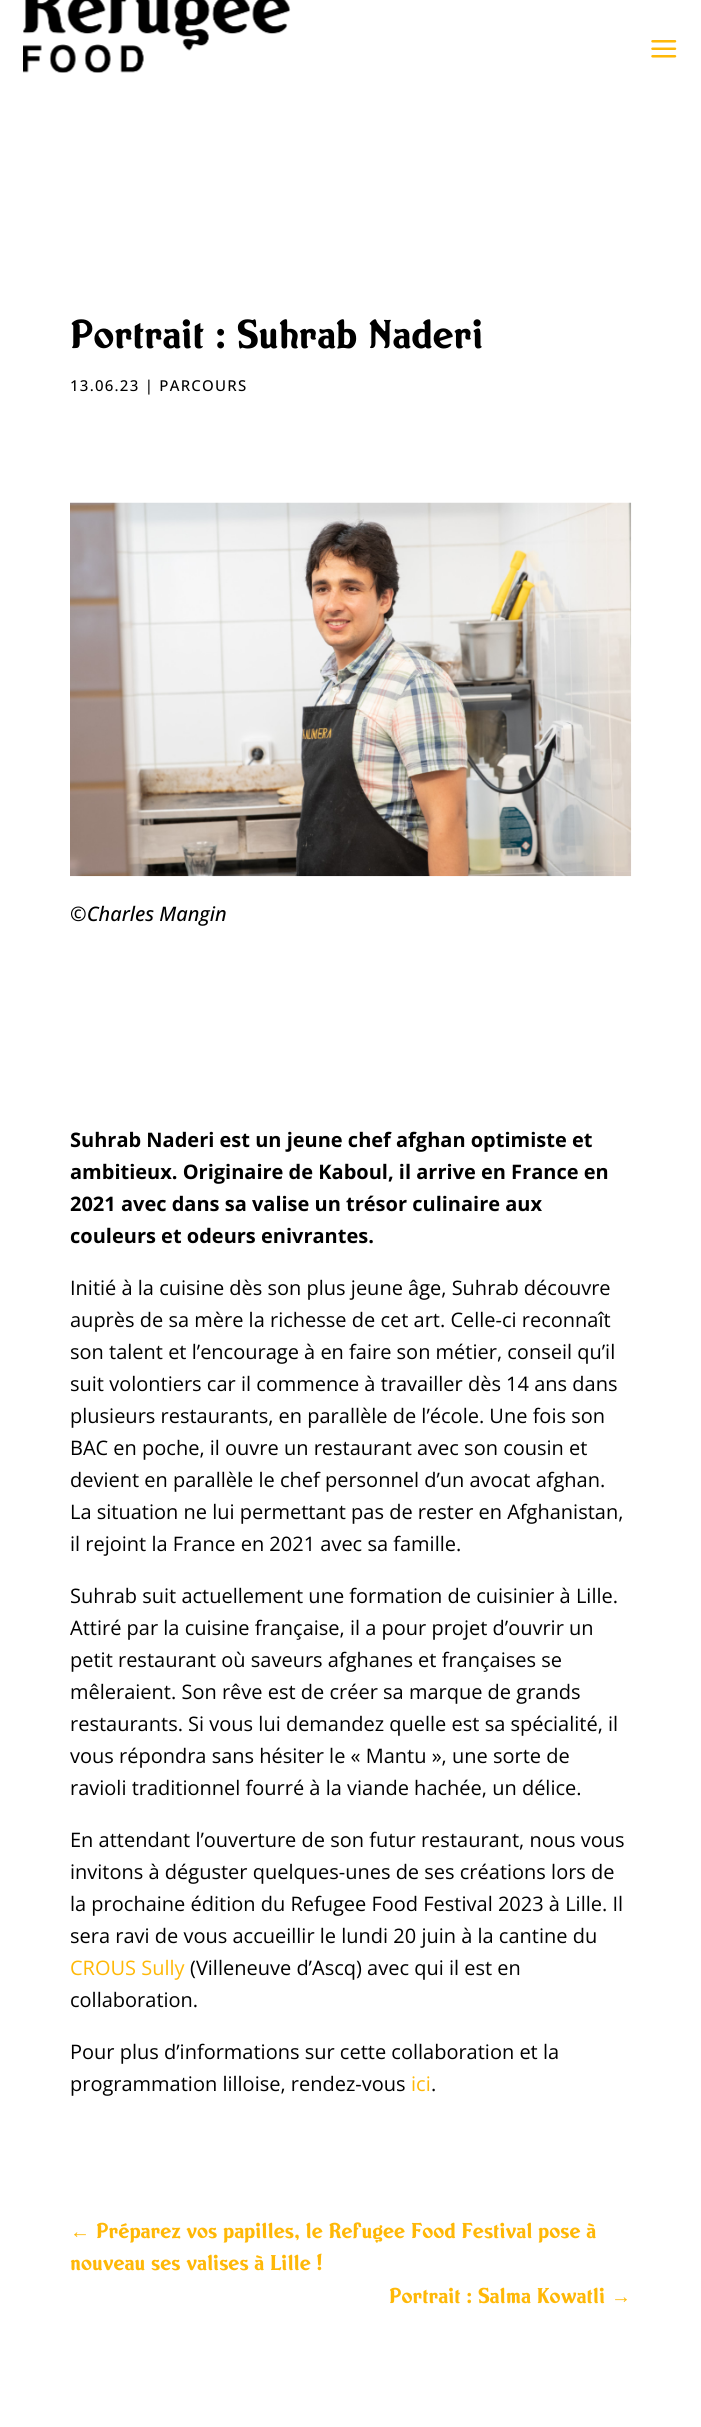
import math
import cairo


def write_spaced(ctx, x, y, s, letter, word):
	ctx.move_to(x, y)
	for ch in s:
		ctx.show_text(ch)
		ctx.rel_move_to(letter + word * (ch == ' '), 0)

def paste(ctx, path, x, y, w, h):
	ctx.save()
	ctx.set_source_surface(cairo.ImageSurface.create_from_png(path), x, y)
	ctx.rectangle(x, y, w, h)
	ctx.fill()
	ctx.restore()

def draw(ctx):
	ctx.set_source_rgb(1, 1, 1)
	ctx.paint()
	paste(ctx, 'media/1.png', 23, 0, 268, 73)
	paste(ctx, 'media/2.png', 651, 40, 26, 18)
	ctx.select_font_face('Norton')
	ctx.set_font_size(37.5)
	ctx.set_source_rgb(0, 0, 0)
	ctx.move_to(70, 348)
	ctx.show_text('Portrait : Suhrab Naderi')
	ctx.select_font_face('Open Sans Medium')
	ctx.set_font_size(15)
	write_spaced(ctx, 70, 391, '13.06.23 | PARCOURS', 1.25, 0)
	paste(ctx, 'media/3.png', 70, 502, 562, 375)
	ctx.select_font_face('Open Sans Medium', cairo.FONT_SLANT_ITALIC)
	ctx.set_font_size(20)
	ctx.move_to(70, 921)
	ctx.show_text('©Charles Mangin')
	ctx.select_font_face('Open Sans', cairo.FONT_SLANT_NORMAL, cairo.FONT_WEIGHT_BOLD)
	for x, y, s in [
		(70, 1147, 'Suhrab Naderi est un jeune chef afghan optimiste et'),
		(70, 1179, 'ambitieux. Originaire de Kaboul, il arrive en France en'),
		(70, 1211, '2021 avec dans sa valise un trésor culinaire aux'),
		(70, 1243, 'couleurs et odeurs enivrantes.'),
	]:
		ctx.move_to(x, y)
		ctx.show_text(s)
	ctx.select_font_face('Open Sans')
	for x, y, s in [
		(70, 1295, 'Initié à la cuisine dès son plus jeune âge, Suhrab découvre'),
		(70, 1327, 'auprès de sa mère la richesse de cet art. Celle-ci reconnaît'),
		(70, 1359, 'son talent et l’encourage à en faire son métier, conseil qu’il'),
		(70, 1391, 'suit volontiers car il commence à travailler dès 14 ans dans'),
		(70, 1423, 'plusieurs restaurants, en parallèle de l’école. Une fois son'),
		(70, 1455, 'BAC en poche, il ouvre un restaurant avec son cousin et'),
		(70, 1487, 'devient en parallèle le chef personnel d’un avocat afghan.'),
		(70, 1519, 'La situation ne lui permettant pas de rester en Afghanistan,'),
		(70, 1551, 'il rejoint la France en 2021 avec sa famille.'),
		(70, 1603, 'Suhrab suit actuellement une formation de cuisinier à Lille.'),
		(70, 1635, 'Attiré par la cuisine française, il a pour projet d’ouvrir un'),
		(70, 1667, 'petit restaurant où saveurs afghanes et françaises se'),
		(70, 1699, 'mêleraient. Son rêve est de créer sa marque de grands'),
		(70, 1731, 'restaurants. Si vous lui demandez quelle est sa spécialité, il'),
		(70, 1763, 'vous répondra sans hésiter le « Mantu », une sorte de'),
		(70, 1795, 'ravioli traditionnel fourré à la viande hachée, un délice.'),
		(70, 1847, 'En attendant l’ouverture de son futur restaurant, nous vous'),
		(70, 1879, 'invitons à déguster quelques-unes de ses créations lors de'),
		(70, 1911, 'la prochaine édition du Refugee Food Festival 2023 à Lille. Il'),
		(70, 1943, 'sera ravi de vous accueillir le lundi 20 juin à la cantine du'),
	]:
		ctx.move_to(x, y)
		ctx.show_text(s)
	ctx.set_source_rgb(1, 0.722, 0.031)
	ctx.move_to(70, 1975)
	ctx.show_text('CROUS Sully')
	ctx.set_source_rgb(0, 0, 0)
	for x, y, s in [
		(190, 1975, '(Villeneuve d’Ascq) avec qui il est en'),
		(70, 2007, 'collaboration.'),
		(70, 2059, 'Pour plus d’informations sur cette collaboration et la'),
		(70, 2091, 'programmation lilloise, rendez-vous'),
	]:
		ctx.move_to(x, y)
		ctx.show_text(s)
	ctx.set_source_rgb(1, 0.722, 0.031)
	ctx.move_to(411, 2091)
	ctx.show_text('ici')
	ctx.set_source_rgb(0, 0, 0)
	ctx.move_to(431, 2091)
	ctx.show_text('.')
	ctx.select_font_face('Liberation Serif')
	ctx.set_source_rgb(1, 0.722, 0.031)
	ctx.move_to(70, 2238)
	ctx.show_text('←')
	ctx.select_font_face('Norton')
	for x, y, s in [
		(96, 2238, 'Préparez vos papilles, le Refugee Food Festival pose à'),
		(70, 2270, 'nouveau ses valises à Lille !'),
		(389, 2303, 'Portrait : Salma Kowatli'),
	]:
		ctx.move_to(x, y)
		ctx.show_text(s)
	ctx.select_font_face('Liberation Serif')
	ctx.move_to(611, 2303)
	ctx.show_text('→')


surface = cairo.ImageSurface(cairo.FORMAT_RGB24, 701, 2427)
ctx = cairo.Context(surface)
options = cairo.FontOptions()
options.set_hint_metrics(cairo.HINT_METRICS_OFF)
options.set_hint_style(cairo.HINT_STYLE_NONE)
ctx.set_font_options(options)
ctx.set_miter_limit(4)
draw(ctx)
surface.write_to_png('image.png')
